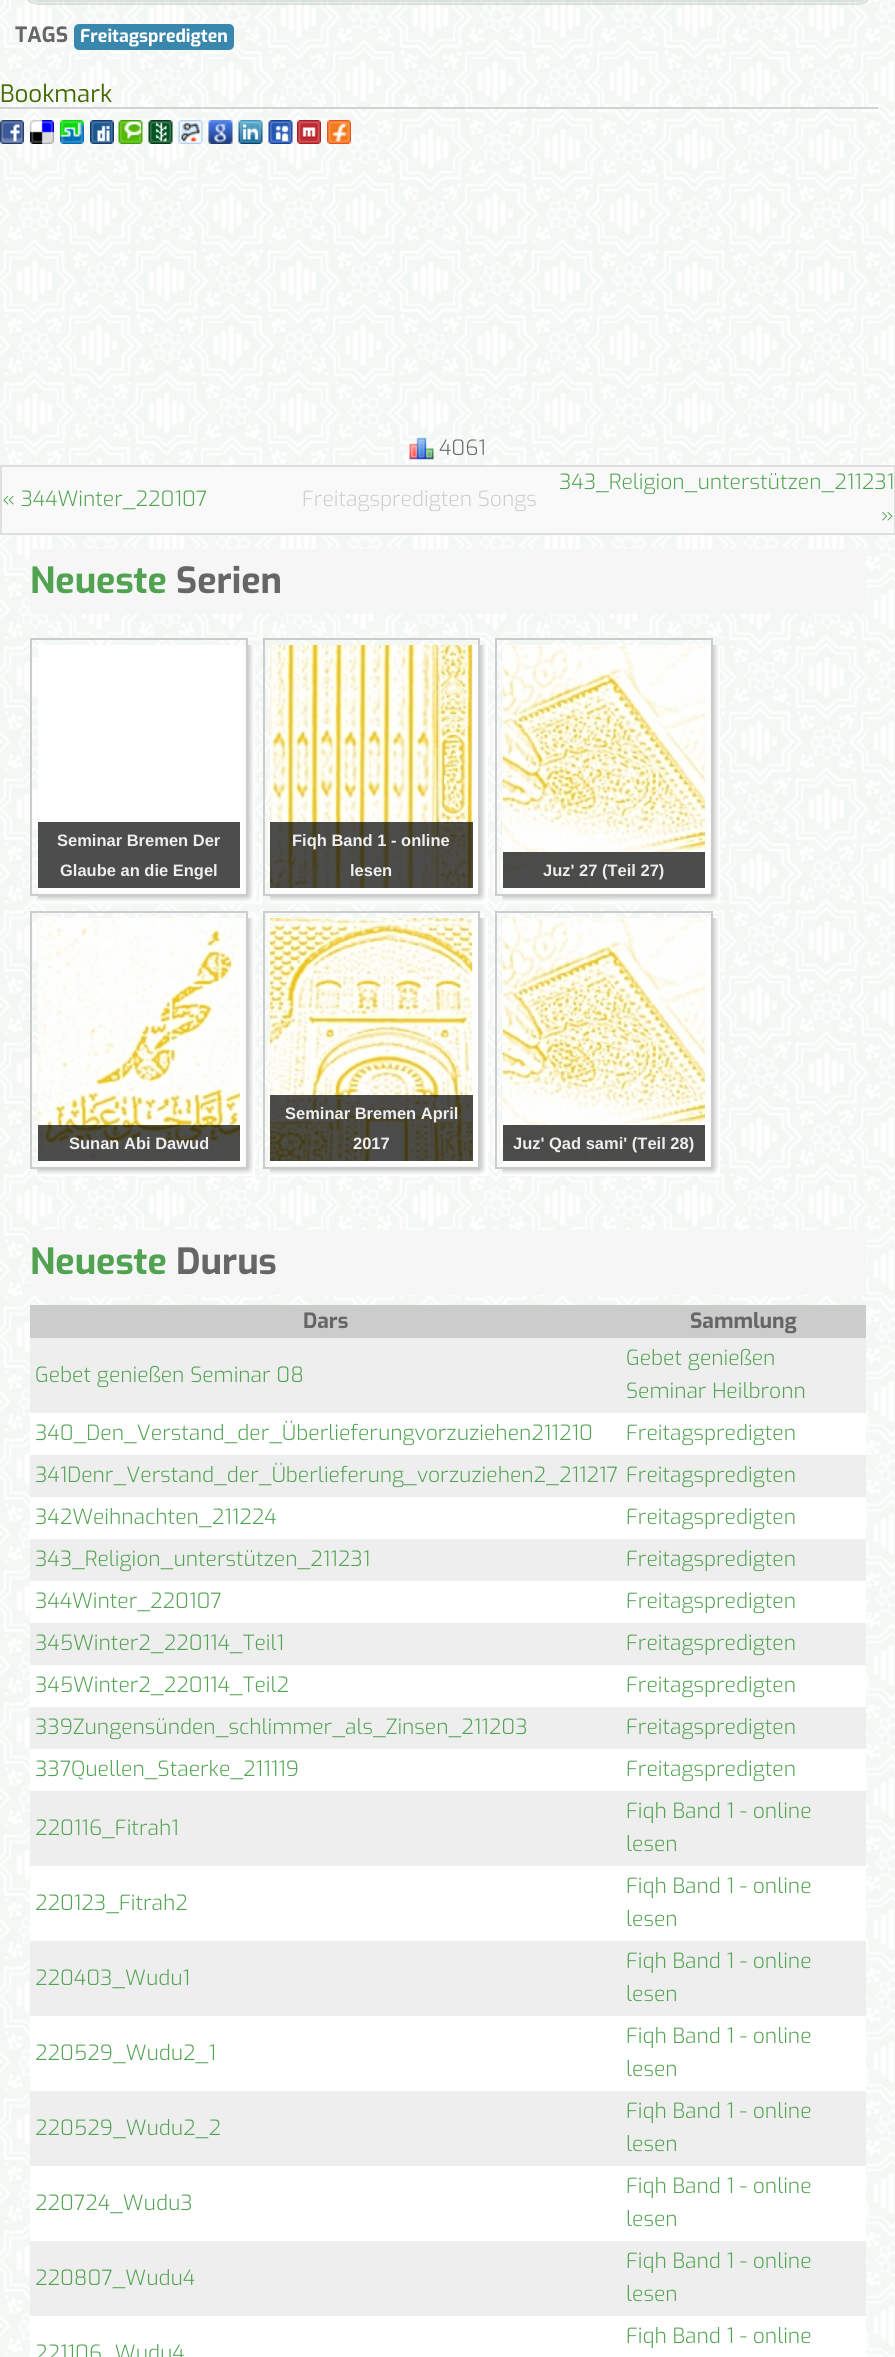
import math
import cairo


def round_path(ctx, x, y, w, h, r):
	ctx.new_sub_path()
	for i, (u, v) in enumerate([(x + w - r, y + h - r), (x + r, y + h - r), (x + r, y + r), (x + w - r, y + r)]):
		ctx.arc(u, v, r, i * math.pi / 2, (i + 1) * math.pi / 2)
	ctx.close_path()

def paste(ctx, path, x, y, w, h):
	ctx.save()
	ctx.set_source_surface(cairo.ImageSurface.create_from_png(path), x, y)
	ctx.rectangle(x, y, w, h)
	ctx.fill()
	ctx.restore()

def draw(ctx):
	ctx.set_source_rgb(1, 1, 1)
	ctx.paint()
	paste(ctx, 'media/1.png', 0, 0, 895, 2357)
	ctx.set_source_rgba(0.318, 0.639, 0.318, 0.09)
	round_path(ctx, 23, -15, 850, 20, 15)
	ctx.fill()
	round_path(ctx, 24, -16, 848, 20, 14)
	ctx.set_source_rgba(0.8, 0.8, 0.8, 0.42)
	ctx.stroke()
	round_path(ctx, 27, -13, 842, 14, 11)
	ctx.stroke()
	ctx.select_font_face('Exo', cairo.FONT_SLANT_NORMAL, cairo.FONT_WEIGHT_BOLD)
	ctx.set_font_size(21)
	ctx.set_source_rgb(0.4, 0.4, 0.4)
	ctx.move_to(15, 42)
	ctx.show_text('TAGS')
	ctx.set_source_rgb(0.227, 0.529, 0.678)
	round_path(ctx, 74, 24, 160, 26, 5)
	ctx.fill()
	ctx.set_font_size(17.75)
	ctx.set_source_rgb(1, 1, 1)
	ctx.move_to(80, 42)
	ctx.show_text('Freitagspredigten')
	ctx.set_source_rgb(0.827, 0.827, 0.827)
	ctx.rectangle(0, 107, 878, 2)
	ctx.fill()
	ctx.select_font_face('Exo')
	ctx.set_font_size(24)
	ctx.set_source_rgb(0.275, 0.416, 0.008)
	ctx.move_to(0, 102)
	ctx.show_text('Bookmark')
	paste(ctx, 'media/2.png', 0, 120, 24, 24)
	paste(ctx, 'media/3.png', 30, 120, 24, 24)
	paste(ctx, 'media/4.png', 60, 120, 24, 24)
	paste(ctx, 'media/5.png', 90, 120, 24, 24)
	paste(ctx, 'media/6.png', 118, 120, 25, 24)
	paste(ctx, 'media/7.png', 148, 120, 25, 24)
	paste(ctx, 'media/8.png', 178, 120, 25, 24)
	paste(ctx, 'media/9.png', 208, 120, 25, 24)
	paste(ctx, 'media/10.png', 238, 120, 25, 24)
	paste(ctx, 'media/11.png', 268, 120, 25, 24)
	paste(ctx, 'media/12.png', 297, 120, 24, 24)
	paste(ctx, 'media/13.png', 327, 120, 24, 24)
	paste(ctx, 'media/14.png', 409, 437, 25, 23)
	ctx.select_font_face('Exo Light')
	ctx.set_font_size(21)
	ctx.set_source_rgb(0.4, 0.4, 0.4)
	ctx.move_to(439, 455)
	ctx.show_text('4061')
	ctx.set_source_rgb(0.976, 0.976, 0.976)
	ctx.rectangle(2, 467, 892, 66)
	ctx.fill()
	ctx.set_source_rgb(0.875, 0.875, 0.875)
	ctx.rectangle(0, 465, 895, 2)
	ctx.rectangle(894, 465, 1, 69)
	ctx.rectangle(0, 533, 895, 2)
	ctx.rectangle(0, 465, 2, 69)
	ctx.fill()
	ctx.set_source_rgb(0.318, 0.639, 0.318)
	ctx.move_to(2, 506)
	ctx.show_text('« 344Winter_220107')
	ctx.set_source_rgb(0.8, 0.8, 0.8)
	ctx.move_to(302, 506)
	ctx.show_text('Freitagspredigten Songs')
	ctx.set_source_rgb(0.318, 0.639, 0.318)
	ctx.move_to(559, 489)
	ctx.show_text('343_Religion_unterstützen_211231')
	ctx.move_to(881, 522)
	ctx.show_text('»')
	ctx.set_source_rgb(0.961, 0.961, 0.961)
	ctx.rectangle(30, 549, 836, 65)
	ctx.fill()
	ctx.select_font_face('Exo', cairo.FONT_SLANT_NORMAL, cairo.FONT_WEIGHT_BOLD)
	ctx.set_font_size(36)
	ctx.set_source_rgb(0.318, 0.639, 0.318)
	ctx.move_to(30, 593)
	ctx.show_text('Neueste')
	ctx.set_source_rgb(0.4, 0.4, 0.4)
	ctx.move_to(176, 593)
	ctx.show_text('Serien')
	ctx.set_source_rgb(1, 1, 1)
	ctx.rectangle(38, 645, 217, 258)
	ctx.fill()
	paste(ctx, 'media/15.png', 37, 645, 217, 257)
	ctx.rectangle(31, 639, 216, 256)
	ctx.set_source_rgb(0.8, 0.8, 0.8)
	ctx.stroke()
	ctx.set_source_rgb(0.302, 0.302, 0.302)
	ctx.rectangle(38, 822, 202, 66)
	ctx.fill()
	ctx.select_font_face('Liberation Sans', cairo.FONT_SLANT_NORMAL, cairo.FONT_WEIGHT_BOLD)
	ctx.set_font_size(16.5)
	ctx.set_source_rgb(0.933, 0.933, 0.933)
	ctx.move_to(57, 846)
	ctx.show_text('Seminar Bremen Der')
	ctx.move_to(60, 876)
	ctx.show_text('Glaube an die Engel')
	ctx.set_source_rgb(1, 1, 1)
	ctx.rectangle(270, 645, 218, 258)
	ctx.fill()
	paste(ctx, 'media/16.png', 270, 645, 216, 257)
	ctx.rectangle(264, 639, 215, 256)
	ctx.set_source_rgb(0.8, 0.8, 0.8)
	ctx.stroke()
	paste(ctx, 'media/17.png', 270, 645, 203, 243)
	ctx.set_source_rgba(0, 0, 0, 0.7)
	ctx.rectangle(270, 822, 203, 66)
	ctx.fill()
	ctx.set_source_rgb(0.933, 0.933, 0.933)
	ctx.move_to(292, 846)
	ctx.show_text('Fiqh Band 1 - online')
	ctx.move_to(350, 876)
	ctx.show_text('lesen')
	ctx.set_source_rgb(1, 1, 1)
	ctx.rectangle(503, 645, 217, 258)
	ctx.fill()
	paste(ctx, 'media/18.png', 502, 645, 217, 257)
	ctx.rectangle(496, 639, 216, 256)
	ctx.set_source_rgb(0.8, 0.8, 0.8)
	ctx.stroke()
	paste(ctx, 'media/19.png', 502, 645, 203, 243)
	ctx.set_source_rgba(0, 0, 0, 0.7)
	ctx.rectangle(503, 852, 202, 36)
	ctx.fill()
	ctx.set_source_rgb(0.933, 0.933, 0.933)
	ctx.move_to(543, 876)
	ctx.show_text('Juz\' 27 (Teil 27)')
	ctx.set_source_rgb(1, 1, 1)
	ctx.rectangle(38, 918, 217, 258)
	ctx.fill()
	paste(ctx, 'media/20.png', 37, 918, 217, 257)
	ctx.rectangle(31, 912, 216, 256)
	ctx.set_source_rgb(0.8, 0.8, 0.8)
	ctx.stroke()
	paste(ctx, 'media/21.png', 37, 918, 203, 243)
	ctx.set_source_rgba(0, 0, 0, 0.7)
	ctx.rectangle(38, 1125, 202, 36)
	ctx.fill()
	ctx.set_source_rgb(0.933, 0.933, 0.933)
	ctx.move_to(69, 1149)
	ctx.show_text('Sunan Abi Dawud')
	ctx.set_source_rgb(1, 1, 1)
	ctx.rectangle(270, 918, 218, 258)
	ctx.fill()
	paste(ctx, 'media/16.png', 270, 918, 216, 257)
	ctx.rectangle(264, 912, 215, 256)
	ctx.set_source_rgb(0.8, 0.8, 0.8)
	ctx.stroke()
	paste(ctx, 'media/22.png', 270, 918, 203, 243)
	ctx.set_source_rgba(0, 0, 0, 0.7)
	ctx.rectangle(270, 1095, 203, 66)
	ctx.fill()
	ctx.set_source_rgb(0.933, 0.933, 0.933)
	ctx.move_to(285, 1119)
	ctx.show_text('Seminar Bremen April')
	ctx.move_to(353, 1149)
	ctx.show_text('2017')
	ctx.set_source_rgb(1, 1, 1)
	ctx.rectangle(503, 918, 217, 258)
	ctx.fill()
	paste(ctx, 'media/23.png', 502, 918, 217, 257)
	ctx.rectangle(496, 912, 216, 256)
	ctx.set_source_rgb(0.8, 0.8, 0.8)
	ctx.stroke()
	paste(ctx, 'media/24.png', 502, 918, 203, 243)
	ctx.set_source_rgba(0, 0, 0, 0.7)
	ctx.rectangle(503, 1125, 202, 36)
	ctx.fill()
	ctx.set_source_rgb(0.933, 0.933, 0.933)
	ctx.move_to(513, 1149)
	ctx.show_text('Juz\' Qad sami\' (Teil 28)')
	ctx.set_source_rgb(0.961, 0.961, 0.961)
	ctx.rectangle(30, 1230, 836, 65)
	ctx.fill()
	ctx.select_font_face('Exo', cairo.FONT_SLANT_NORMAL, cairo.FONT_WEIGHT_BOLD)
	ctx.set_font_size(36)
	ctx.set_source_rgb(0.318, 0.639, 0.318)
	ctx.move_to(30, 1274)
	ctx.show_text('Neueste')
	ctx.set_source_rgb(0.4, 0.4, 0.4)
	ctx.move_to(176, 1274)
	ctx.show_text('Durus')
	ctx.set_source_rgb(0.8, 0.8, 0.8)
	ctx.rectangle(30, 1305, 836, 33)
	ctx.fill()
	ctx.set_font_size(21)
	ctx.set_source_rgb(0.4, 0.4, 0.4)
	ctx.move_to(303, 1328)
	ctx.show_text('Dars')
	ctx.move_to(690, 1328)
	ctx.show_text('Sammlung')
	ctx.set_source_rgb(0.933, 0.933, 0.933)
	ctx.rectangle(30, 1338, 836, 75)
	ctx.fill()
	ctx.select_font_face('Exo Light')
	ctx.set_source_rgb(0.318, 0.639, 0.318)
	for x, y, s in [
		(35, 1382, 'Gebet genießen Seminar 08'),
		(626, 1365, 'Gebet genießen'),
		(626, 1398, 'Seminar Heilbronn'),
	]:
		ctx.move_to(x, y)
		ctx.show_text(s)
	ctx.set_source_rgb(1, 1, 1)
	ctx.rectangle(30, 1413, 836, 42)
	ctx.fill()
	ctx.set_source_rgb(0.318, 0.639, 0.318)
	ctx.move_to(35, 1440)
	ctx.show_text('340_Den_Verstand_der_Überlieferungvorzuziehen211210')
	ctx.move_to(626, 1440)
	ctx.show_text('Freitagspredigten')
	ctx.set_source_rgb(0.933, 0.933, 0.933)
	ctx.rectangle(30, 1455, 836, 42)
	ctx.fill()
	ctx.set_source_rgb(0.318, 0.639, 0.318)
	ctx.move_to(35, 1482)
	ctx.show_text('341Denr_Verstand_der_Überlieferung_vorzuziehen2_211217')
	ctx.move_to(626, 1482)
	ctx.show_text('Freitagspredigten')
	ctx.set_source_rgb(1, 1, 1)
	ctx.rectangle(30, 1497, 836, 42)
	ctx.fill()
	ctx.set_source_rgb(0.318, 0.639, 0.318)
	ctx.move_to(35, 1524)
	ctx.show_text('342Weihnachten_211224')
	ctx.move_to(626, 1524)
	ctx.show_text('Freitagspredigten')
	ctx.set_source_rgb(0.933, 0.933, 0.933)
	ctx.rectangle(30, 1539, 836, 42)
	ctx.fill()
	ctx.set_source_rgb(0.318, 0.639, 0.318)
	ctx.move_to(35, 1566)
	ctx.show_text('343_Religion_unterstützen_211231')
	ctx.move_to(626, 1566)
	ctx.show_text('Freitagspredigten')
	ctx.set_source_rgb(1, 1, 1)
	ctx.rectangle(30, 1581, 836, 42)
	ctx.fill()
	ctx.set_source_rgb(0.318, 0.639, 0.318)
	ctx.move_to(35, 1608)
	ctx.show_text('344Winter_220107')
	ctx.move_to(626, 1608)
	ctx.show_text('Freitagspredigten')
	ctx.set_source_rgb(0.933, 0.933, 0.933)
	ctx.rectangle(30, 1623, 836, 42)
	ctx.fill()
	ctx.set_source_rgb(0.318, 0.639, 0.318)
	ctx.move_to(35, 1650)
	ctx.show_text('345Winter2_220114_Teil1')
	ctx.move_to(626, 1650)
	ctx.show_text('Freitagspredigten')
	ctx.set_source_rgb(1, 1, 1)
	ctx.rectangle(30, 1665, 836, 42)
	ctx.fill()
	ctx.set_source_rgb(0.318, 0.639, 0.318)
	ctx.move_to(35, 1692)
	ctx.show_text('345Winter2_220114_Teil2')
	ctx.move_to(626, 1692)
	ctx.show_text('Freitagspredigten')
	ctx.set_source_rgb(0.933, 0.933, 0.933)
	ctx.rectangle(30, 1707, 836, 42)
	ctx.fill()
	ctx.set_source_rgb(0.318, 0.639, 0.318)
	ctx.move_to(35, 1734)
	ctx.show_text('339Zungensünden_schlimmer_als_Zinsen_211203')
	ctx.move_to(626, 1734)
	ctx.show_text('Freitagspredigten')
	ctx.set_source_rgb(1, 1, 1)
	ctx.rectangle(30, 1749, 836, 42)
	ctx.fill()
	ctx.set_source_rgb(0.318, 0.639, 0.318)
	ctx.move_to(35, 1776)
	ctx.show_text('337Quellen_Staerke_211119')
	ctx.move_to(626, 1776)
	ctx.show_text('Freitagspredigten')
	ctx.set_source_rgb(0.933, 0.933, 0.933)
	ctx.rectangle(30, 1791, 836, 75)
	ctx.fill()
	ctx.set_source_rgb(0.318, 0.639, 0.318)
	for x, y, s in [
		(35, 1835, '220116_Fitrah1'),
		(626, 1818, 'Fiqh Band 1 - online'),
		(626, 1851, 'lesen'),
	]:
		ctx.move_to(x, y)
		ctx.show_text(s)
	ctx.set_source_rgb(1, 1, 1)
	ctx.rectangle(30, 1866, 836, 75)
	ctx.fill()
	ctx.set_source_rgb(0.318, 0.639, 0.318)
	for x, y, s in [
		(35, 1910, '220123_Fitrah2'),
		(626, 1893, 'Fiqh Band 1 - online'),
		(626, 1926, 'lesen'),
	]:
		ctx.move_to(x, y)
		ctx.show_text(s)
	ctx.set_source_rgb(0.933, 0.933, 0.933)
	ctx.rectangle(30, 1941, 836, 75)
	ctx.fill()
	ctx.set_source_rgb(0.318, 0.639, 0.318)
	for x, y, s in [
		(35, 1985, '220403_Wudu1'),
		(626, 1968, 'Fiqh Band 1 - online'),
		(626, 2001, 'lesen'),
	]:
		ctx.move_to(x, y)
		ctx.show_text(s)
	ctx.set_source_rgb(1, 1, 1)
	ctx.rectangle(30, 2016, 836, 75)
	ctx.fill()
	ctx.set_source_rgb(0.318, 0.639, 0.318)
	for x, y, s in [
		(35, 2060, '220529_Wudu2_1'),
		(626, 2043, 'Fiqh Band 1 - online'),
		(626, 2076, 'lesen'),
	]:
		ctx.move_to(x, y)
		ctx.show_text(s)
	ctx.set_source_rgb(0.933, 0.933, 0.933)
	ctx.rectangle(30, 2091, 836, 75)
	ctx.fill()
	ctx.set_source_rgb(0.318, 0.639, 0.318)
	for x, y, s in [
		(35, 2135, '220529_Wudu2_2'),
		(626, 2118, 'Fiqh Band 1 - online'),
		(626, 2151, 'lesen'),
	]:
		ctx.move_to(x, y)
		ctx.show_text(s)
	ctx.set_source_rgb(1, 1, 1)
	ctx.rectangle(30, 2166, 836, 75)
	ctx.fill()
	ctx.set_source_rgb(0.318, 0.639, 0.318)
	for x, y, s in [
		(35, 2210, '220724_Wudu3'),
		(626, 2193, 'Fiqh Band 1 - online'),
		(626, 2226, 'lesen'),
	]:
		ctx.move_to(x, y)
		ctx.show_text(s)
	ctx.set_source_rgb(0.933, 0.933, 0.933)
	ctx.rectangle(30, 2241, 836, 75)
	ctx.fill()
	ctx.set_source_rgb(0.318, 0.639, 0.318)
	for x, y, s in [
		(35, 2285, '220807_Wudu4'),
		(626, 2268, 'Fiqh Band 1 - online'),
		(626, 2301, 'lesen'),
	]:
		ctx.move_to(x, y)
		ctx.show_text(s)
	ctx.set_source_rgb(1, 1, 1)
	ctx.rectangle(30, 2316, 836, 41)
	ctx.fill()
	ctx.set_source_rgb(0.318, 0.639, 0.318)
	ctx.move_to(626, 2343)
	ctx.show_text('Fiqh Band 1 - online')
	ctx.move_to(35, 2360)
	ctx.show_text('221106_Wudu4')


surface = cairo.ImageSurface(cairo.FORMAT_RGB24, 895, 2357)
ctx = cairo.Context(surface)
options = cairo.FontOptions()
options.set_hint_metrics(cairo.HINT_METRICS_OFF)
options.set_hint_style(cairo.HINT_STYLE_NONE)
ctx.set_font_options(options)
ctx.set_miter_limit(4)
draw(ctx)
surface.write_to_png('image.png')
